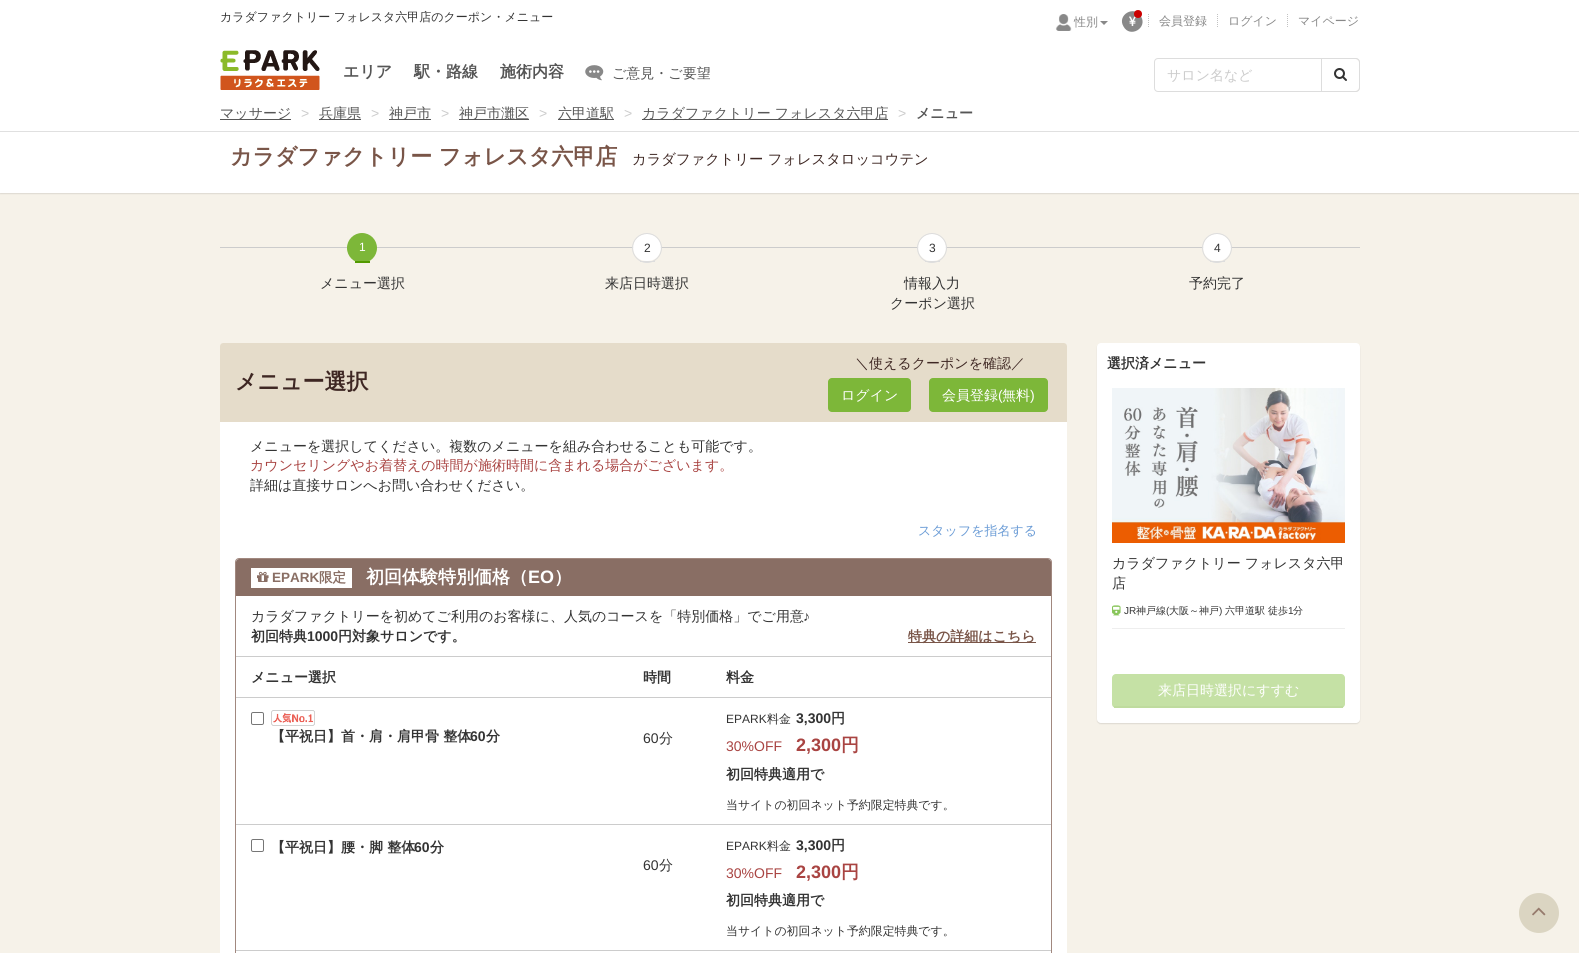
import math
import cairo


def round_path(ctx, x, y, w, h, r):
	ctx.new_sub_path()
	for i, (u, v) in enumerate([(x + w - r, y + h - r), (x + r, y + h - r), (x + r, y + r), (x + w - r, y + r)]):
		ctx.arc(u, v, r, i * math.pi / 2, (i + 1) * math.pi / 2)
	ctx.close_path()

def blur_box(ctx, x, y, w, h, r, blur, alpha):
	ctx.push_group_with_content(cairo.CONTENT_ALPHA)
	ctx.set_operator(cairo.OPERATOR_SOURCE)
	for i in range(15, -16, -2):
		e = blur * i / 6
		if min(w, h) + 2 * e > 0:
			ctx.set_source_rgba(0, 0, 0, alpha * math.erfc((i - 1) / 8.5) / 2)
			round_path(ctx, x - e, y - e, w + 2 * e, h + 2 * e, max(0, min(r + e + blur * .6, min(w, h) / 2 + e)))
			ctx.fill()
	ctx.mask(ctx.pop_group())

def paste(ctx, path, x, y, w, h):
	ctx.save()
	ctx.set_source_surface(cairo.ImageSurface.create_from_png(path), x, y)
	ctx.rectangle(x, y, w, h)
	ctx.fill()
	ctx.restore()

def draw(ctx):
	ctx.set_source_rgb(0.961, 0.949, 0.914)
	ctx.paint()
	ctx.set_source_rgb(1, 1, 1)
	ctx.rectangle(0, 0, 1579, 131)
	ctx.fill()
	ctx.select_font_face('WenQuanYi Zen Hei Medium')
	ctx.set_font_size(12)
	ctx.set_source_rgb(0.2, 0.2, 0.2)
	ctx.move_to(220, 21)
	ctx.show_text('カラダファクトリー フォレスタ六甲店のクーポン・メニュー')
	paste(ctx, 'media/1.png', 1055, 14, 17, 17)
	ctx.set_source_rgb(0.533, 0.533, 0.533)
	ctx.move_to(1074, 26)
	ctx.show_text('性別')
	ctx.new_path()
	ctx.move_to(1100, 21)
	ctx.line_to(1108, 21)
	ctx.line_to(1104, 25)
	ctx.close_path()
	ctx.move_to(1141, 16.5)
	ctx.curve_to(1148, 28, 1130, 38.5, 1123.5, 26.5)
	ctx.curve_to(1116.5, 15, 1134.5, 4.5, 1141, 16.5)
	ctx.close_path()
	ctx.fill()
	paste(ctx, 'media/2.png', 1129, 16, 7, 10)
	ctx.set_source_rgb(0.8, 0, 0)
	ctx.arc(1138, 14, 4, 0, 2 * math.pi)
	ctx.fill()
	ctx.set_source_rgb(0.533, 0.533, 0.533)
	ctx.move_to(1159, 25)
	ctx.show_text('会員登録')
	ctx.new_path()
	ctx.move_to(1148.5, 14)
	ctx.line_to(1148.5, 28)
	ctx.set_source_rgb(0.761, 0.761, 0.761)
	ctx.set_line_width(1)
	ctx.set_dash([1, 1])
	ctx.stroke()
	ctx.set_source_rgb(0.533, 0.533, 0.533)
	ctx.move_to(1228, 25)
	ctx.show_text('ログイン')
	ctx.new_path()
	ctx.move_to(1217.5, 14)
	ctx.line_to(1217.5, 28)
	ctx.set_source_rgb(0.761, 0.761, 0.761)
	ctx.stroke()
	ctx.set_source_rgb(0.533, 0.533, 0.533)
	ctx.move_to(1298, 25)
	ctx.show_text('マイページ')
	ctx.new_path()
	ctx.move_to(1287.5, 14)
	ctx.line_to(1287.5, 28)
	ctx.set_source_rgb(0.761, 0.761, 0.761)
	ctx.stroke()
	paste(ctx, 'media/3.png', 220, 50, 100, 40)
	ctx.select_font_face('WenQuanYi Zen Hei', cairo.FONT_SLANT_NORMAL, cairo.FONT_WEIGHT_BOLD)
	ctx.set_font_size(16)
	ctx.set_source_rgb(0.337, 0.337, 0.337)
	for x, y, s in [
		(343, 77, 'エリア'),
		(414, 77, '駅・路線'),
		(500, 77, '施術内容'),
	]:
		ctx.move_to(x, y)
		ctx.show_text(s)
	paste(ctx, 'media/4.png', 585, 65, 19, 16)
	ctx.select_font_face('WenQuanYi Zen Hei Medium')
	ctx.set_font_size(14)
	ctx.move_to(612, 78)
	ctx.show_text('ご意見・ご要望')
	ctx.new_path()
	ctx.move_to(1158, 58.5)
	ctx.line_to(1321.5, 58.5)
	ctx.line_to(1321.5, 91.5)
	ctx.line_to(1158, 91.5)
	ctx.curve_to(1156, 91.5, 1154.5, 90, 1154.5, 88)
	ctx.line_to(1154.5, 62)
	ctx.curve_to(1154.5, 60, 1156, 58.5, 1158, 58.5)
	ctx.close_path()
	ctx.set_source_rgb(0.867, 0.867, 0.867)
	ctx.set_dash([])
	ctx.stroke()
	ctx.set_source_rgb(0.8, 0.8, 0.8)
	ctx.move_to(1167, 80)
	ctx.show_text('サロン名など')
	ctx.set_source_rgb(0.937, 0.922, 0.914)
	ctx.new_path()
	ctx.move_to(1322, 58)
	ctx.line_to(1356, 58)
	ctx.curve_to(1358, 58, 1360, 60, 1360, 62)
	ctx.line_to(1360, 88)
	ctx.curve_to(1360, 90, 1358, 92, 1356, 92)
	ctx.line_to(1322, 92)
	ctx.close_path()
	ctx.fill()
	ctx.set_source_rgb(0.867, 0.867, 0.867)
	ctx.set_fill_rule(cairo.FILL_RULE_EVEN_ODD)
	ctx.new_path()
	ctx.move_to(1322, 58)
	ctx.line_to(1356, 58)
	ctx.curve_to(1358, 58, 1360, 60, 1360, 62)
	ctx.line_to(1360, 88)
	ctx.curve_to(1360, 90, 1358, 92, 1356, 92)
	ctx.line_to(1322, 92)
	ctx.close_path()
	ctx.move_to(1322, 59)
	ctx.line_to(1356, 59)
	ctx.curve_to(1357.5, 59, 1359, 60.5, 1359, 62)
	ctx.line_to(1359, 88)
	ctx.curve_to(1359, 89.5, 1357.5, 91, 1356, 91)
	ctx.line_to(1322, 91)
	ctx.close_path()
	ctx.fill()
	ctx.set_source_rgb(1, 1, 1)
	ctx.new_path()
	ctx.move_to(1322, 59)
	ctx.line_to(1355, 59)
	ctx.curve_to(1357, 59, 1359, 61, 1359, 63)
	ctx.line_to(1359, 87)
	ctx.curve_to(1359, 89, 1357, 91, 1355, 91)
	ctx.line_to(1322, 91)
	ctx.close_path()
	ctx.fill()
	paste(ctx, 'media/5.png', 1334, 68, 13, 13)
	ctx.set_source_rgb(0.337, 0.337, 0.337)
	ctx.rectangle(220, 119, 71, 1)
	ctx.fill()
	ctx.move_to(220, 118)
	ctx.show_text('マッサージ')
	ctx.select_font_face('Liberation Sans')
	ctx.set_source_rgb(0.8, 0.8, 0.8)
	ctx.move_to(301, 118)
	ctx.show_text('>')
	ctx.set_source_rgb(0.337, 0.337, 0.337)
	ctx.rectangle(319, 119, 42, 1)
	ctx.fill()
	ctx.select_font_face('WenQuanYi Zen Hei Medium')
	ctx.move_to(319, 118)
	ctx.show_text('兵庫県')
	ctx.select_font_face('Liberation Sans')
	ctx.set_source_rgb(0.8, 0.8, 0.8)
	ctx.move_to(371, 118)
	ctx.show_text('>')
	ctx.set_source_rgb(0.337, 0.337, 0.337)
	ctx.rectangle(389, 119, 42, 1)
	ctx.fill()
	ctx.select_font_face('WenQuanYi Zen Hei Medium')
	ctx.move_to(389, 118)
	ctx.show_text('神戸市')
	ctx.select_font_face('Liberation Sans')
	ctx.set_source_rgb(0.8, 0.8, 0.8)
	ctx.move_to(441, 118)
	ctx.show_text('>')
	ctx.set_source_rgb(0.337, 0.337, 0.337)
	ctx.rectangle(459, 119, 70, 1)
	ctx.fill()
	ctx.select_font_face('WenQuanYi Zen Hei Medium')
	ctx.move_to(459, 118)
	ctx.show_text('神戸市灘区')
	ctx.select_font_face('Liberation Sans')
	ctx.set_source_rgb(0.8, 0.8, 0.8)
	ctx.move_to(539, 118)
	ctx.show_text('>')
	ctx.set_source_rgb(0.337, 0.337, 0.337)
	ctx.rectangle(558, 119, 56, 1)
	ctx.fill()
	ctx.select_font_face('WenQuanYi Zen Hei Medium')
	ctx.move_to(558, 118)
	ctx.show_text('六甲道駅')
	ctx.select_font_face('Liberation Sans')
	ctx.set_source_rgb(0.8, 0.8, 0.8)
	ctx.move_to(624, 118)
	ctx.show_text('>')
	ctx.set_source_rgb(0.337, 0.337, 0.337)
	ctx.rectangle(642, 119, 246, 1)
	ctx.fill()
	ctx.select_font_face('WenQuanYi Zen Hei Medium')
	ctx.move_to(642, 118)
	ctx.show_text('カラダファクトリー フォレスタ六甲店')
	ctx.select_font_face('Liberation Sans')
	ctx.set_source_rgb(0.8, 0.8, 0.8)
	ctx.move_to(898, 118)
	ctx.show_text('>')
	ctx.select_font_face('WenQuanYi Zen Hei', cairo.FONT_SLANT_NORMAL, cairo.FONT_WEIGHT_BOLD)
	ctx.set_source_rgb(0.337, 0.337, 0.337)
	ctx.move_to(916, 118)
	ctx.show_text('メニュー')
	ctx.set_source_rgb(0, 0, 0)
	blur_box(ctx, 0, 132, 1579, 62, 0, 0.5, 0.1)
	ctx.set_source_rgb(1, 1, 1)
	ctx.rectangle(0, 132, 1579, 61)
	ctx.fill()
	ctx.set_source_rgb(0.878, 0.878, 0.878)
	ctx.rectangle(0, 131, 1579, 1)
	ctx.fill()
	ctx.set_font_size(22)
	ctx.set_source_rgb(0.475, 0.333, 0.282)
	ctx.move_to(230, 164)
	ctx.show_text('カラダファクトリー フォレスタ六甲店')
	ctx.select_font_face('WenQuanYi Zen Hei Medium')
	ctx.set_font_size(14.3)
	ctx.set_source_rgb(0.243, 0.153, 0.137)
	ctx.move_to(632, 164)
	ctx.show_text('カラダファクトリー フォレスタロッコウテン')
	ctx.set_source_rgb(0.8, 0.8, 0.8)
	ctx.rectangle(220, 247, 1140, 1)
	ctx.fill()
	ctx.set_source_rgb(0.49, 0.718, 0.224)
	ctx.arc(362, 248, 15, 0, 2 * math.pi)
	ctx.fill()
	ctx.set_source_rgb(0.322, 0.604, 0)
	ctx.rectangle(355, 261, 15, 2)
	ctx.fill()
	ctx.select_font_face('Liberation Sans')
	ctx.set_font_size(12)
	ctx.set_source_rgb(1, 1, 1)
	ctx.move_to(359, 251)
	ctx.show_text('1')
	ctx.select_font_face('WenQuanYi Zen Hei Medium')
	ctx.set_font_size(14)
	ctx.set_source_rgb(0.2, 0.2, 0.2)
	ctx.move_to(320, 288)
	ctx.show_text('メニュー選択')
	ctx.set_source_rgb(1, 1, 1)
	ctx.set_fill_rule(cairo.FILL_RULE_WINDING)
	ctx.new_path()
	ctx.move_to(647, 234)
	ctx.curve_to(665, 234, 666, 261, 647, 261)
	ctx.curve_to(628, 261, 629, 234, 647, 234)
	ctx.close_path()
	ctx.fill()
	ctx.arc(647, 248, 14.5, 0, 2 * math.pi)
	ctx.set_source_rgb(0.867, 0.867, 0.867)
	ctx.stroke()
	ctx.rectangle(640, 261, 15, 1)
	ctx.fill()
	ctx.select_font_face('Liberation Sans')
	ctx.set_font_size(12)
	ctx.set_source_rgb(0.2, 0.2, 0.2)
	ctx.move_to(644, 252)
	ctx.show_text('2')
	ctx.select_font_face('WenQuanYi Zen Hei Medium')
	ctx.set_font_size(14)
	ctx.move_to(605, 288)
	ctx.show_text('来店日時選択')
	ctx.set_source_rgb(1, 1, 1)
	ctx.new_path()
	ctx.move_to(932, 234)
	ctx.curve_to(950, 234, 951, 261, 932, 261)
	ctx.curve_to(913, 261, 914, 234, 932, 234)
	ctx.close_path()
	ctx.fill()
	ctx.arc(932, 248, 14.5, 0, 2 * math.pi)
	ctx.set_source_rgb(0.867, 0.867, 0.867)
	ctx.stroke()
	ctx.rectangle(925, 261, 15, 1)
	ctx.fill()
	ctx.select_font_face('Liberation Sans')
	ctx.set_font_size(12)
	ctx.set_source_rgb(0.2, 0.2, 0.2)
	ctx.move_to(929, 252)
	ctx.show_text('3')
	ctx.select_font_face('WenQuanYi Zen Hei Medium')
	ctx.set_font_size(14)
	ctx.move_to(904, 288)
	ctx.show_text('情報入力')
	ctx.move_to(890, 308)
	ctx.show_text('クーポン選択')
	ctx.set_source_rgb(1, 1, 1)
	ctx.new_path()
	ctx.move_to(1217, 234)
	ctx.curve_to(1235, 234, 1236, 261, 1217, 261)
	ctx.curve_to(1198, 261, 1199, 234, 1217, 234)
	ctx.close_path()
	ctx.fill()
	ctx.arc(1217, 248, 14.5, 0, 2 * math.pi)
	ctx.set_source_rgb(0.867, 0.867, 0.867)
	ctx.stroke()
	ctx.rectangle(1210, 261, 15, 1)
	ctx.fill()
	ctx.select_font_face('Liberation Sans')
	ctx.set_font_size(12)
	ctx.set_source_rgb(0.2, 0.2, 0.2)
	ctx.move_to(1214, 252)
	ctx.show_text('4')
	ctx.select_font_face('WenQuanYi Zen Hei Medium')
	ctx.set_font_size(14)
	ctx.move_to(1189, 288)
	ctx.show_text('予約完了')
	ctx.set_source_rgb(1, 1, 1)
	round_path(ctx, 220, 343, 847, 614, 4)
	ctx.fill()
	ctx.set_source_rgb(0.898, 0.863, 0.792)
	ctx.new_path()
	ctx.move_to(223, 343)
	ctx.line_to(1064, 343)
	ctx.curve_to(1065.5, 343, 1067, 344.5, 1067, 346)
	ctx.line_to(1067, 422)
	ctx.line_to(220, 422)
	ctx.line_to(220, 346)
	ctx.curve_to(220, 344.5, 221.5, 343, 223, 343)
	ctx.close_path()
	ctx.fill()
	ctx.select_font_face('WenQuanYi Zen Hei', cairo.FONT_SLANT_NORMAL, cairo.FONT_WEIGHT_BOLD)
	ctx.set_font_size(22)
	ctx.set_source_rgb(0.243, 0.153, 0.137)
	ctx.move_to(235, 389)
	ctx.show_text('メニュー選択')
	ctx.select_font_face('WenQuanYi Zen Hei Medium')
	ctx.set_font_size(14)
	ctx.move_to(855, 368)
	ctx.show_text('＼使えるクーポンを確認／')
	ctx.set_source_rgb(0.49, 0.718, 0.224)
	round_path(ctx, 828, 378, 83, 34, 4)
	ctx.fill()
	ctx.set_source_rgb(1, 1, 1)
	ctx.move_to(841, 400)
	ctx.show_text('ログイン')
	ctx.set_source_rgb(0.49, 0.718, 0.224)
	round_path(ctx, 929, 378, 119, 34, 4)
	ctx.fill()
	ctx.set_source_rgb(1, 1, 1)
	ctx.move_to(942, 400)
	ctx.show_text('会員登録')
	ctx.select_font_face('Liberation Sans')
	ctx.move_to(998, 400)
	ctx.show_text('(')
	ctx.select_font_face('WenQuanYi Zen Hei Medium')
	ctx.move_to(1002, 400)
	ctx.show_text('無料')
	ctx.select_font_face('Liberation Sans')
	ctx.move_to(1030, 400)
	ctx.show_text(')')
	ctx.select_font_face('WenQuanYi Zen Hei Medium')
	ctx.set_source_rgb(0.2, 0.2, 0.2)
	ctx.move_to(250, 451)
	ctx.show_text('メニューを選択してください。複数のメニューを組み合わせることも可能です。')
	ctx.set_source_rgb(0.663, 0.267, 0.259)
	ctx.move_to(250, 470)
	ctx.show_text('カウンセリングやお着替えの時間が施術時間に含まれる場合がございます。')
	ctx.set_source_rgb(0.2, 0.2, 0.2)
	ctx.move_to(250, 490)
	ctx.show_text('詳細は直接サロンへお問い合わせください。')
	ctx.set_font_size(13)
	ctx.set_source_rgb(0.42, 0.612, 0.839)
	ctx.move_to(918, 535)
	ctx.show_text('スタッフを指名する')
	round_path(ctx, 235.5, 558.5, 816, 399, 3.5)
	ctx.set_source_rgb(0.631, 0.533, 0.498)
	ctx.stroke()
	ctx.set_source_rgb(0.537, 0.431, 0.392)
	ctx.new_path()
	ctx.move_to(239, 559)
	ctx.line_to(1048, 559)
	ctx.curve_to(1049.5, 559, 1051, 560.5, 1051, 562)
	ctx.line_to(1051, 596)
	ctx.line_to(236, 596)
	ctx.line_to(236, 562)
	ctx.curve_to(236, 560.5, 237.5, 559, 239, 559)
	ctx.close_path()
	ctx.fill()
	ctx.set_source_rgb(1, 1, 1)
	ctx.rectangle(251, 568, 101, 20)
	ctx.fill()
	paste(ctx, 'media/6.png', 257, 571, 12, 11)
	ctx.select_font_face('Liberation Sans', cairo.FONT_SLANT_NORMAL, cairo.FONT_WEIGHT_BOLD)
	ctx.set_font_size(13.5)
	ctx.set_source_rgb(0.537, 0.431, 0.392)
	ctx.move_to(272, 582)
	ctx.show_text('EPARK')
	ctx.select_font_face('WenQuanYi Zen Hei', cairo.FONT_SLANT_NORMAL, cairo.FONT_WEIGHT_BOLD)
	ctx.move_to(319, 582)
	ctx.show_text('限定')
	ctx.set_font_size(18)
	ctx.set_source_rgb(1, 1, 1)
	ctx.move_to(366, 583)
	ctx.show_text('初回体験特別価格（')
	ctx.select_font_face('Liberation Sans', cairo.FONT_SLANT_NORMAL, cairo.FONT_WEIGHT_BOLD)
	ctx.move_to(528, 583)
	ctx.show_text('EO')
	ctx.select_font_face('WenQuanYi Zen Hei', cairo.FONT_SLANT_NORMAL, cairo.FONT_WEIGHT_BOLD)
	ctx.move_to(554, 583)
	ctx.show_text('）')
	ctx.select_font_face('WenQuanYi Zen Hei Medium')
	ctx.set_font_size(14)
	ctx.set_source_rgb(0.2, 0.2, 0.2)
	ctx.move_to(251, 621)
	ctx.show_text('カラダファクトリーを初めてご利用のお客様に、人気のコースを「特別価格」でご用意')
	ctx.select_font_face('Liberation Sans')
	ctx.move_to(803, 621)
	ctx.show_text('♪')
	ctx.select_font_face('WenQuanYi Zen Hei', cairo.FONT_SLANT_NORMAL, cairo.FONT_WEIGHT_BOLD)
	ctx.move_to(251, 641)
	ctx.show_text('初回特典')
	ctx.select_font_face('Liberation Sans', cairo.FONT_SLANT_NORMAL, cairo.FONT_WEIGHT_BOLD)
	ctx.move_to(307, 641)
	ctx.show_text('1000')
	ctx.select_font_face('WenQuanYi Zen Hei', cairo.FONT_SLANT_NORMAL, cairo.FONT_WEIGHT_BOLD)
	ctx.move_to(338, 641)
	ctx.show_text('円対象サロンです。')
	ctx.set_source_rgb(0.475, 0.333, 0.282)
	ctx.rectangle(908, 642, 128, 1)
	ctx.fill()
	ctx.move_to(908, 641)
	ctx.show_text('特典の詳細はこちら')
	ctx.set_source_rgb(0.8, 0.8, 0.8)
	ctx.rectangle(236, 656, 815, 1)
	ctx.fill()
	ctx.set_source_rgb(0.2, 0.2, 0.2)
	for x, y, s in [
		(251, 682, 'メニュー選択'),
		(643, 682, '時間'),
		(726, 682, '料金'),
	]:
		ctx.move_to(x, y)
		ctx.show_text(s)
	ctx.set_source_rgb(0.8, 0.8, 0.8)
	ctx.rectangle(236, 697, 815, 1)
	ctx.fill()
	round_path(ctx, 251.5, 712.5, 12, 12, 1.5)
	ctx.set_source_rgb(0.463, 0.463, 0.463)
	ctx.stroke()
	paste(ctx, 'media/7.png', 271, 710, 44, 16)
	ctx.set_source_rgb(0.2, 0.2, 0.2)
	ctx.move_to(271, 741)
	ctx.show_text('【平祝日】首・肩・肩甲骨 整体')
	ctx.select_font_face('Liberation Sans', cairo.FONT_SLANT_NORMAL, cairo.FONT_WEIGHT_BOLD)
	ctx.move_to(470, 741)
	ctx.show_text('60')
	ctx.select_font_face('WenQuanYi Zen Hei', cairo.FONT_SLANT_NORMAL, cairo.FONT_WEIGHT_BOLD)
	ctx.move_to(486, 741)
	ctx.show_text('分')
	ctx.select_font_face('Liberation Sans')
	ctx.move_to(643, 743)
	ctx.show_text('60')
	ctx.select_font_face('WenQuanYi Zen Hei Medium')
	ctx.move_to(659, 743)
	ctx.show_text('分')
	ctx.select_font_face('Liberation Sans')
	ctx.set_font_size(12)
	ctx.move_to(726, 723)
	ctx.show_text('EPARK')
	ctx.select_font_face('WenQuanYi Zen Hei Medium')
	ctx.move_to(767, 723)
	ctx.show_text('料金')
	ctx.select_font_face('Liberation Sans', cairo.FONT_SLANT_NORMAL, cairo.FONT_WEIGHT_BOLD)
	ctx.set_font_size(14)
	ctx.move_to(796, 723)
	ctx.show_text('3,300')
	ctx.select_font_face('WenQuanYi Zen Hei', cairo.FONT_SLANT_NORMAL, cairo.FONT_WEIGHT_BOLD)
	ctx.move_to(831, 723)
	ctx.show_text('円')
	ctx.select_font_face('Liberation Sans')
	ctx.set_source_rgb(0.663, 0.267, 0.259)
	ctx.move_to(726, 751)
	ctx.show_text('30%OFF')
	ctx.select_font_face('Liberation Sans', cairo.FONT_SLANT_NORMAL, cairo.FONT_WEIGHT_BOLD)
	ctx.set_font_size(18)
	ctx.move_to(796, 751)
	ctx.show_text('2,300')
	ctx.select_font_face('WenQuanYi Zen Hei', cairo.FONT_SLANT_NORMAL, cairo.FONT_WEIGHT_BOLD)
	ctx.move_to(841, 751)
	ctx.show_text('円')
	ctx.set_font_size(14)
	ctx.set_source_rgb(0.2, 0.2, 0.2)
	ctx.move_to(726, 779)
	ctx.show_text('初回特典適用で')
	ctx.select_font_face('WenQuanYi Zen Hei Medium')
	ctx.set_font_size(11.9)
	ctx.move_to(726, 809)
	ctx.show_text('当サイトの初回ネット予約限定特典です。')
	ctx.set_source_rgb(0.8, 0.8, 0.8)
	ctx.rectangle(236, 824, 815, 1)
	ctx.fill()
	round_path(ctx, 251.5, 839.5, 12, 12, 1.5)
	ctx.set_source_rgb(0.463, 0.463, 0.463)
	ctx.stroke()
	ctx.select_font_face('WenQuanYi Zen Hei', cairo.FONT_SLANT_NORMAL, cairo.FONT_WEIGHT_BOLD)
	ctx.set_font_size(14)
	ctx.set_source_rgb(0.2, 0.2, 0.2)
	ctx.move_to(271, 852)
	ctx.show_text('【平祝日】腰・脚 整体')
	ctx.select_font_face('Liberation Sans', cairo.FONT_SLANT_NORMAL, cairo.FONT_WEIGHT_BOLD)
	ctx.move_to(414, 852)
	ctx.show_text('60')
	ctx.select_font_face('WenQuanYi Zen Hei', cairo.FONT_SLANT_NORMAL, cairo.FONT_WEIGHT_BOLD)
	ctx.move_to(430, 852)
	ctx.show_text('分')
	ctx.select_font_face('Liberation Sans')
	ctx.set_font_size(12)
	ctx.move_to(726, 850)
	ctx.show_text('EPARK')
	ctx.select_font_face('WenQuanYi Zen Hei Medium')
	ctx.move_to(767, 850)
	ctx.show_text('料金')
	ctx.select_font_face('Liberation Sans', cairo.FONT_SLANT_NORMAL, cairo.FONT_WEIGHT_BOLD)
	ctx.set_font_size(14)
	ctx.move_to(796, 850)
	ctx.show_text('3,300')
	ctx.select_font_face('WenQuanYi Zen Hei', cairo.FONT_SLANT_NORMAL, cairo.FONT_WEIGHT_BOLD)
	ctx.move_to(831, 850)
	ctx.show_text('円')
	ctx.select_font_face('Liberation Sans')
	ctx.set_source_rgb(0.663, 0.267, 0.259)
	ctx.move_to(726, 878)
	ctx.show_text('30%OFF')
	ctx.select_font_face('Liberation Sans', cairo.FONT_SLANT_NORMAL, cairo.FONT_WEIGHT_BOLD)
	ctx.set_font_size(18)
	ctx.move_to(796, 878)
	ctx.show_text('2,300')
	ctx.select_font_face('WenQuanYi Zen Hei', cairo.FONT_SLANT_NORMAL, cairo.FONT_WEIGHT_BOLD)
	ctx.move_to(841, 878)
	ctx.show_text('円')
	ctx.set_font_size(14)
	ctx.set_source_rgb(0.2, 0.2, 0.2)
	ctx.move_to(726, 905)
	ctx.show_text('初回特典適用で')
	ctx.select_font_face('WenQuanYi Zen Hei Medium')
	ctx.set_font_size(11.9)
	ctx.move_to(726, 935)
	ctx.show_text('当サイトの初回ネット予約限定特典です。')
	ctx.select_font_face('Liberation Sans')
	ctx.set_font_size(14)
	ctx.move_to(643, 870)
	ctx.show_text('60')
	ctx.select_font_face('WenQuanYi Zen Hei Medium')
	ctx.move_to(659, 870)
	ctx.show_text('分')
	ctx.set_source_rgb(0.8, 0.8, 0.8)
	ctx.rectangle(236, 950, 815, 1)
	ctx.fill()
	ctx.set_source_rgb(0, 0, 0)
	blur_box(ctx, 1097, 344, 263, 380, 4, 0.5, 0.1)
	ctx.set_source_rgb(1, 1, 1)
	round_path(ctx, 1097, 343, 263, 380, 4)
	ctx.fill()
	ctx.select_font_face('WenQuanYi Zen Hei', cairo.FONT_SLANT_NORMAL, cairo.FONT_WEIGHT_BOLD)
	ctx.set_source_rgb(0.2, 0.2, 0.2)
	ctx.move_to(1107, 368)
	ctx.show_text('選択済メニュー')
	paste(ctx, 'media/8.png', 1112, 388, 233, 155)
	ctx.select_font_face('WenQuanYi Zen Hei Medium')
	ctx.move_to(1112, 568)
	ctx.show_text('カラダファクトリー フォレスタ六甲')
	ctx.move_to(1112, 588)
	ctx.show_text('店')
	paste(ctx, 'media/9.png', 1112, 605, 9, 11)
	ctx.select_font_face('Liberation Sans')
	ctx.set_font_size(10)
	ctx.move_to(1124, 614)
	ctx.show_text('JR')
	ctx.select_font_face('WenQuanYi Zen Hei Medium')
	ctx.move_to(1136, 614)
	ctx.show_text('神戸線')
	ctx.select_font_face('Liberation Sans')
	ctx.move_to(1166, 614)
	ctx.show_text('(')
	ctx.select_font_face('WenQuanYi Zen Hei Medium')
	ctx.move_to(1169, 614)
	ctx.show_text('大阪～神戸')
	ctx.select_font_face('Liberation Sans')
	ctx.move_to(1219, 614)
	ctx.show_text(')')
	ctx.select_font_face('WenQuanYi Zen Hei Medium')
	ctx.move_to(1225, 614)
	ctx.show_text('六甲道駅 徒歩')
	ctx.select_font_face('Liberation Sans')
	ctx.move_to(1288, 614)
	ctx.show_text('1')
	ctx.select_font_face('WenQuanYi Zen Hei Medium')
	ctx.move_to(1293, 614)
	ctx.show_text('分')
	ctx.set_source_rgb(0.933, 0.933, 0.933)
	ctx.rectangle(1112, 628, 233, 1)
	ctx.fill()
	ctx.set_source_rgb(0.773, 0.882, 0.647)
	round_path(ctx, 1112, 674, 233, 34, 4)
	ctx.fill()
	ctx.set_source_rgb(0.749, 0.859, 0.62)
	ctx.rectangle(1114, 706, 229, 2)
	ctx.fill()
	ctx.set_font_size(14)
	ctx.set_source_rgb(1, 1, 1)
	ctx.move_to(1158, 695)
	ctx.show_text('来店日時選択にすすむ')
	ctx.set_source_rgb(0.859, 0.835, 0.761)
	ctx.new_path()
	ctx.arc(1539, 913, 20, 0, 2 * math.pi)
	ctx.fill()
	paste(ctx, 'media/10.png', 1532, 907, 14, 9)


surface = cairo.ImageSurface(cairo.FORMAT_RGB24, 1579, 953)
ctx = cairo.Context(surface)
options = cairo.FontOptions()
options.set_hint_metrics(cairo.HINT_METRICS_OFF)
options.set_hint_style(cairo.HINT_STYLE_NONE)
ctx.set_font_options(options)
ctx.set_miter_limit(4)
draw(ctx)
surface.write_to_png('image.png')
